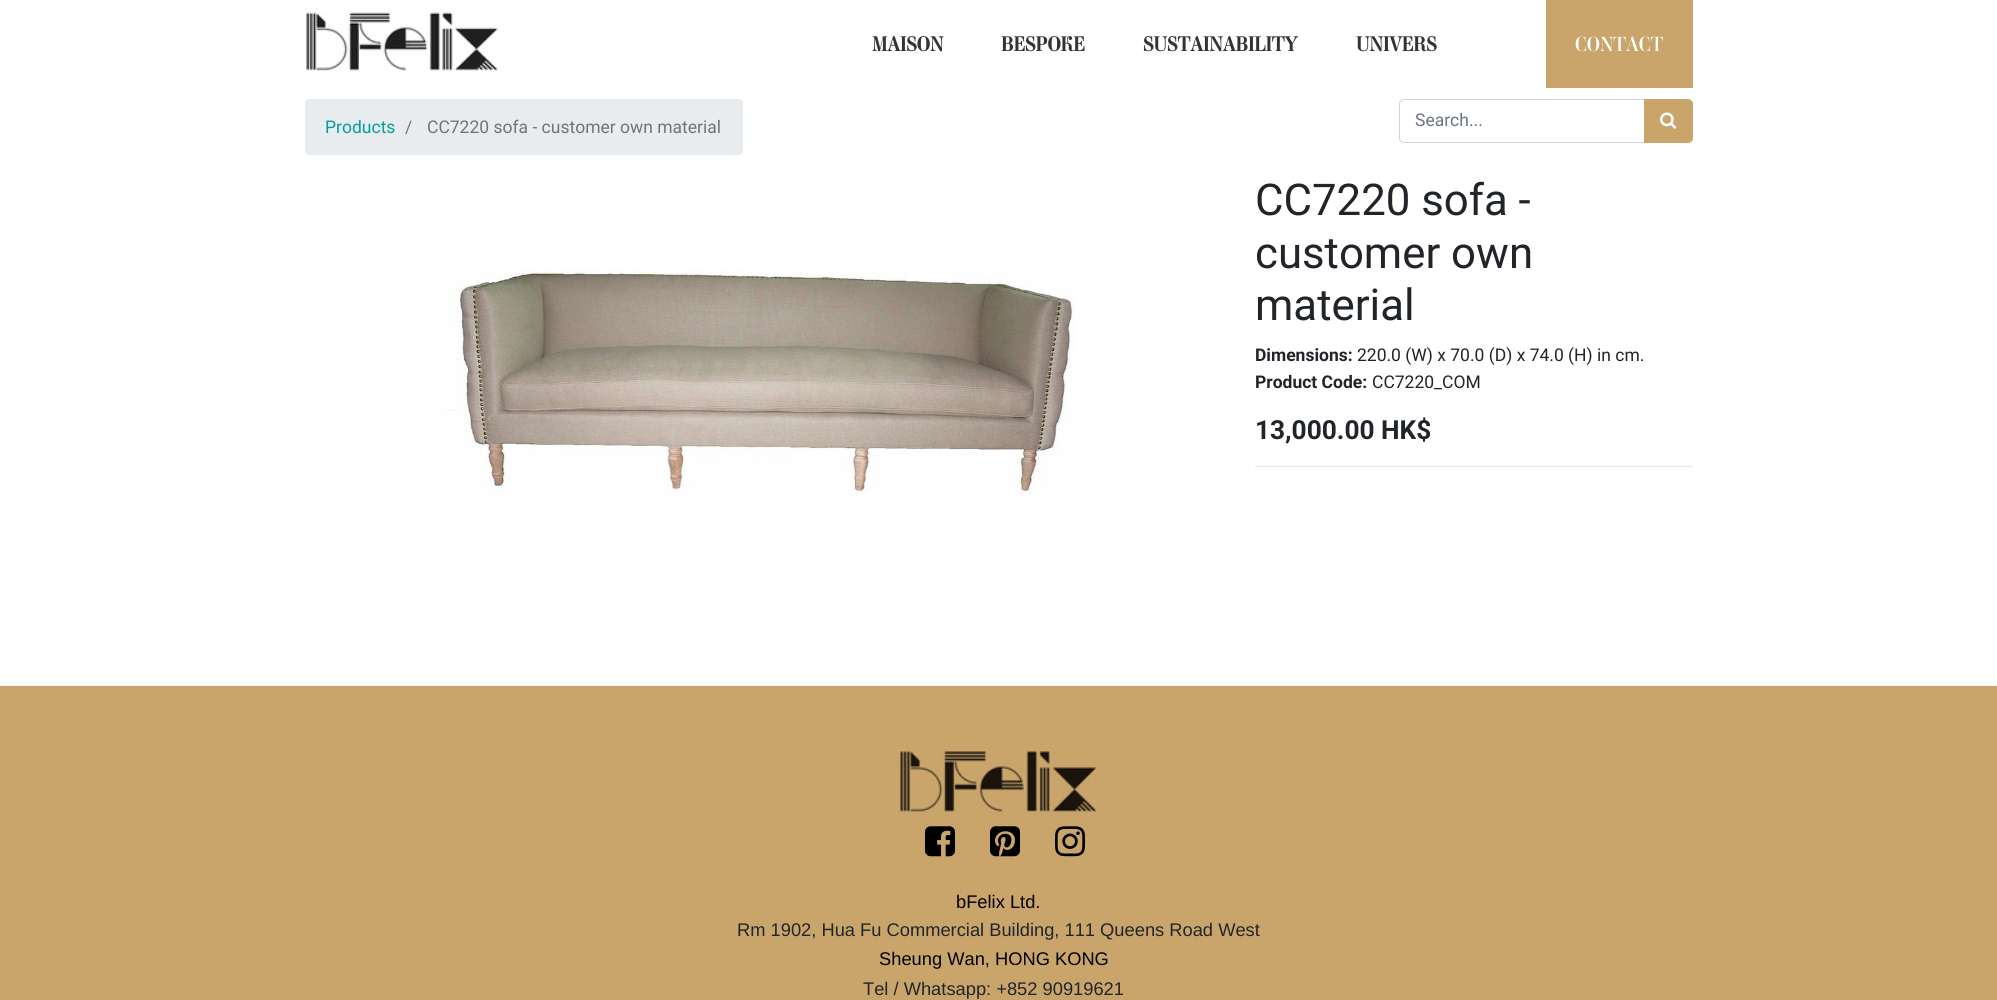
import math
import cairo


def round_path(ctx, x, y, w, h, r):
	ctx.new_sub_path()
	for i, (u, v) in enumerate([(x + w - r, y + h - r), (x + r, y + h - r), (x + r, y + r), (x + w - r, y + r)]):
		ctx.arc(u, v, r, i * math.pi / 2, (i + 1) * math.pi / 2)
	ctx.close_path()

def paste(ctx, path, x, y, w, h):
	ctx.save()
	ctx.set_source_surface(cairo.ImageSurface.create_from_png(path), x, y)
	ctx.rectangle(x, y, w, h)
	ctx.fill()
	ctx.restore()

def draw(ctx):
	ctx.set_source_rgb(1, 1, 1)
	ctx.paint()
	paste(ctx, 'media/1.png', 306, 12, 192, 59)
	ctx.select_font_face('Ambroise', cairo.FONT_SLANT_NORMAL, cairo.FONT_WEIGHT_BOLD)
	ctx.set_font_size(20)
	ctx.set_source_rgb(0.2, 0.2, 0.2)
	for x, y, s in [
		(872, 51, 'MAISON'),
		(1001, 51, 'BESPOKE'),
		(1143, 51, 'SUSTAINABILITY'),
		(1356, 51, 'UNIVERS'),
	]:
		ctx.move_to(x, y)
		ctx.show_text(s)
	ctx.set_source_rgb(0.788, 0.647, 0.42)
	ctx.rectangle(1546, 0, 147, 88)
	ctx.fill()
	ctx.select_font_face('Ambroise')
	ctx.set_source_rgb(1, 1, 1)
	ctx.move_to(1575, 51)
	ctx.show_text('CONTACT')
	ctx.set_source_rgb(0.914, 0.925, 0.937)
	round_path(ctx, 305, 99, 438, 56, 5)
	ctx.fill()
	ctx.select_font_face('Roboto')
	ctx.set_font_size(17.5)
	ctx.set_source_rgb(0, 0.627, 0.616)
	ctx.move_to(325, 133)
	ctx.show_text('Products')
	ctx.set_source_rgb(0.424, 0.459, 0.49)
	ctx.move_to(405, 133)
	ctx.show_text('/')
	ctx.move_to(427, 133)
	ctx.show_text('CC7220 sofa - customer own material')
	ctx.new_path()
	ctx.move_to(1404, 99.5)
	ctx.line_to(1644.5, 99.5)
	ctx.line_to(1644.5, 142.5)
	ctx.line_to(1404, 142.5)
	ctx.curve_to(1401.5, 142.5, 1399.5, 140.5, 1399.5, 138)
	ctx.line_to(1399.5, 104)
	ctx.curve_to(1399.5, 101.5, 1401.5, 99.5, 1404, 99.5)
	ctx.close_path()
	ctx.set_source_rgb(0.808, 0.831, 0.855)
	ctx.set_line_width(1)
	ctx.stroke()
	ctx.set_source_rgb(0.424, 0.459, 0.49)
	ctx.move_to(1415, 126)
	ctx.show_text('Search...')
	ctx.set_source_rgb(0.788, 0.647, 0.42)
	ctx.new_path()
	ctx.move_to(1644.5, 99.5)
	ctx.line_to(1688, 99.5)
	ctx.curve_to(1690.5, 99.5, 1692.5, 101.5, 1692.5, 104)
	ctx.line_to(1692.5, 138)
	ctx.curve_to(1692.5, 140.5, 1690.5, 142.5, 1688, 142.5)
	ctx.line_to(1644.5, 142.5)
	ctx.close_path()
	ctx.fill_preserve()
	ctx.stroke()
	paste(ctx, 'media/2.png', 1660, 112, 17, 17)
	paste(ctx, 'media/3.png', 439, 269, 636, 226)
	ctx.set_font_size(43.75)
	ctx.set_source_rgb(0.129, 0.145, 0.161)
	for x, y, s in [
		(1255, 215, 'CC7220 sofa -'),
		(1255, 268, 'customer own'),
		(1255, 320, 'material'),
	]:
		ctx.move_to(x, y)
		ctx.show_text(s)
	ctx.select_font_face('Roboto', cairo.FONT_SLANT_NORMAL, cairo.FONT_WEIGHT_BOLD)
	ctx.set_font_size(17.5)
	ctx.move_to(1255, 361)
	ctx.show_text('Dimensions:')
	ctx.select_font_face('Roboto')
	ctx.move_to(1357, 361)
	ctx.show_text('220.0 (W) x 70.0 (D) x 74.0 (H) in cm.')
	ctx.select_font_face('Roboto', cairo.FONT_SLANT_NORMAL, cairo.FONT_WEIGHT_BOLD)
	ctx.move_to(1255, 388)
	ctx.show_text('Product Code:')
	ctx.select_font_face('Roboto')
	ctx.move_to(1372, 388)
	ctx.show_text('CC7220_COM')
	ctx.select_font_face('Roboto', cairo.FONT_SLANT_NORMAL, cairo.FONT_WEIGHT_BOLD)
	ctx.set_font_size(26.25)
	ctx.move_to(1255, 439)
	ctx.show_text('13,000.00 HK$')
	ctx.set_source_rgb(0.902, 0.902, 0.902)
	ctx.rectangle(1255, 466, 438, 1)
	ctx.fill()
	ctx.set_source_rgb(0.976, 0.976, 0.976)
	ctx.rectangle(0, 685, 1997, 1)
	ctx.fill()
	ctx.set_source_rgb(0.788, 0.647, 0.42)
	ctx.rectangle(0, 686, 1997, 314)
	ctx.fill()
	paste(ctx, 'media/4.png', 900, 751, 197, 61)
	paste(ctx, 'media/5.png', 925, 826, 30, 31)
	paste(ctx, 'media/6.png', 990, 826, 30, 31)
	paste(ctx, 'media/7.png', 1055, 826, 30, 31)
	ctx.select_font_face('Liberation Sans')
	ctx.set_font_size(18.3)
	ctx.set_source_rgb(0, 0, 0)
	ctx.move_to(956, 908)
	ctx.show_text('bFelix Ltd.')
	ctx.set_source_rgb(0.129, 0.145, 0.161)
	ctx.move_to(737, 936)
	ctx.show_text('Rm 1902, Hua Fu Commercial Building, 111 Queens Road West')
	ctx.set_source_rgb(0, 0, 0)
	ctx.move_to(879, 965)
	ctx.show_text('Sheung Wan, HONG KONG')
	ctx.set_source_rgb(0.129, 0.145, 0.161)
	ctx.move_to(863, 995)
	ctx.show_text('Tel / Whatsapp: +852 90919621')


surface = cairo.ImageSurface(cairo.FORMAT_RGB24, 1997, 1000)
ctx = cairo.Context(surface)
options = cairo.FontOptions()
options.set_hint_metrics(cairo.HINT_METRICS_OFF)
options.set_hint_style(cairo.HINT_STYLE_NONE)
ctx.set_font_options(options)
ctx.set_miter_limit(4)
draw(ctx)
surface.write_to_png('image.png')
